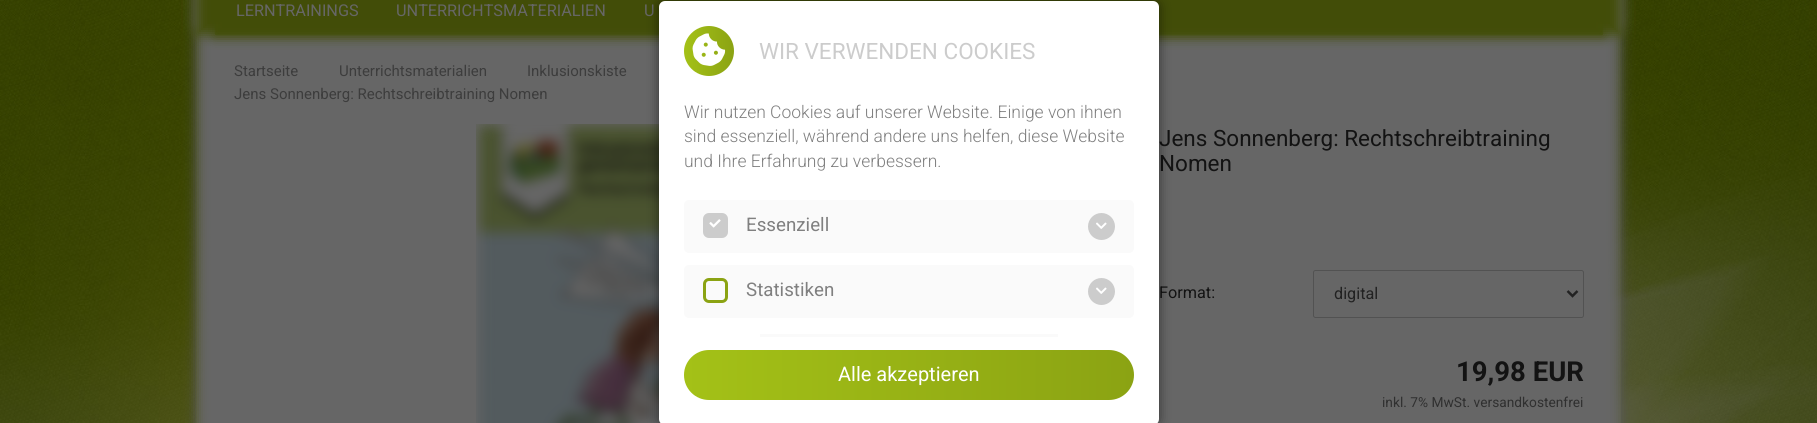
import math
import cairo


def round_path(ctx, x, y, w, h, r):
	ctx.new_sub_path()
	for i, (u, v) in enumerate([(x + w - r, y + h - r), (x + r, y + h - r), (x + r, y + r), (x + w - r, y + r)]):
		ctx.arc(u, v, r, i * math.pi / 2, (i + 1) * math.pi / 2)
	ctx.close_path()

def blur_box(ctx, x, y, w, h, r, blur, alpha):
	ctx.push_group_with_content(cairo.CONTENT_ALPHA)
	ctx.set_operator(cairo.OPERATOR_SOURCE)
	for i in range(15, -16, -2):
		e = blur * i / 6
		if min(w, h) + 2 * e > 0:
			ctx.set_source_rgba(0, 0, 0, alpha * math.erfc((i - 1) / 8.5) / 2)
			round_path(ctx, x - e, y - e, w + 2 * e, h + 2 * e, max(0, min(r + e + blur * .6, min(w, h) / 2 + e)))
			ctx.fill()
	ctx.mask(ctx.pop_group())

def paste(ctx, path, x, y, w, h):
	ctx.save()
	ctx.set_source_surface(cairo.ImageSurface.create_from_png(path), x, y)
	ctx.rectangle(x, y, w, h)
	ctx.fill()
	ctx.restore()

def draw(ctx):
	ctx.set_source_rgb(1, 1, 1)
	ctx.paint()
	paste(ctx, 'media/1.png', 0, 0, 1817, 423)
	ctx.save()
	ctx.set_fill_rule(cairo.FILL_RULE_EVEN_ODD)
	ctx.new_path()
	ctx.move_to(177, 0)
	ctx.line_to(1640, 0)
	ctx.line_to(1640, 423)
	ctx.line_to(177, 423)
	ctx.close_path()
	ctx.move_to(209, -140)
	ctx.line_to(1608, -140)
	ctx.curve_to(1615, -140, 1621, -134, 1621, -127)
	ctx.line_to(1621, 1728)
	ctx.curve_to(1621, 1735, 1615, 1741, 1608, 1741)
	ctx.line_to(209, 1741)
	ctx.curve_to(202, 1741, 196, 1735, 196, 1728)
	ctx.line_to(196, -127)
	ctx.curve_to(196, -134, 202, -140, 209, -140)
	ctx.close_path()
	ctx.clip()
	ctx.set_source_rgb(0, 0, 0)
	blur_box(ctx, 196, -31, 1425, 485, 13, 6, 0.3)
	ctx.restore()
	ctx.set_source_rgb(0.4, 0.4, 0.4)
	blur_box(ctx, 196, -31, 1425, 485, 13, 6, 1)
	ctx.set_source_rgb(0.396, 0.396, 0.396)
	blur_box(ctx, 196, -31, 1425, 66, 13, 6, 1)
	ctx.set_source_rgb(0.259, 0.302, 0.035)
	blur_box(ctx, 196, -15, 1425, 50, 0, 6, 1)
	blur_box(ctx, 215, -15, 1388, 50, 0, 6, 1)
	ctx.save()
	ctx.rectangle(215, 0, 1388, 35)
	ctx.clip()
	blur_box(ctx, 215, -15, 1388, 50, 0, 6, 1)
	ctx.restore()
	ctx.select_font_face('Roboto')
	ctx.set_font_size(16.25)
	ctx.set_source_rgb(0.4, 0.4, 0.4)
	for x, y, s in [
		(236, 16, 'LERNTRAININGS'),
		(396, 16, 'UNTERRICHTSMATERIALIEN'),
		(644, 16, 'U'),
	]:
		ctx.move_to(x, y)
		ctx.show_text(s)
	ctx.set_font_size(15)
	ctx.set_source_rgb(0.239, 0.239, 0.239)
	for x, y, s in [
		(234, 76, 'Startseite'),
		(339, 76, 'Unterrichtsmaterialien'),
		(527, 76, 'Inklusionskiste'),
		(234, 99, 'Jens Sonnenberg: Rechtschreibtraining Nomen'),
	]:
		ctx.move_to(x, y)
		ctx.show_text(s)
	paste(ctx, 'media/2.png', 476, 124, 185, 299)
	ctx.set_font_size(22.5)
	ctx.set_source_rgb(0.078, 0.078, 0.078)
	ctx.move_to(1159, 146)
	ctx.show_text('Jens Sonnenberg: Rechtschreibtraining')
	ctx.move_to(1159, 171)
	ctx.show_text('Nomen')
	ctx.set_font_size(16.25)
	ctx.move_to(1159, 298)
	ctx.show_text('Format:')
	round_path(ctx, 1313.5, 270.5, 270, 47, 2)
	ctx.set_source_rgb(0.322, 0.322, 0.322)
	ctx.set_line_width(1)
	ctx.stroke()
	ctx.new_path()
	ctx.move_to(1567.5, 291)
	ctx.line_to(1572.5, 296)
	ctx.line_to(1577.5, 291)
	ctx.set_source_rgb(0.133, 0.133, 0.133)
	ctx.set_line_width(2.5)
	ctx.stroke()
	ctx.move_to(1334, 299)
	ctx.show_text('digital')
	ctx.select_font_face('Roboto', cairo.FONT_SLANT_NORMAL, cairo.FONT_WEIGHT_BOLD)
	ctx.set_font_size(27.5)
	ctx.set_source_rgb(0.078, 0.078, 0.078)
	ctx.move_to(1456, 381)
	ctx.show_text('19,98 EUR')
	ctx.select_font_face('Roboto')
	ctx.set_font_size(13.75)
	ctx.set_source_rgb(0.188, 0.188, 0.188)
	ctx.move_to(1382, 407)
	ctx.show_text('inkl. 7% MwSt. versandkostenfrei')
	ctx.set_source_rgb(0, 0, 0)
	blur_box(ctx, 659, 1, 500, 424, 6, 6, 0.5)
	ctx.set_source_rgb(1, 1, 1)
	round_path(ctx, 659, 1, 500, 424, 6)
	ctx.fill()
	gradient = cairo.LinearGradient(684, 51, 734, 51)
	gradient.add_color_stop_rgba(0, 0.643, 0.757, 0.09, 1)
	gradient.add_color_stop_rgba(1, 0.545, 0.639, 0.075, 1)
	ctx.set_source(gradient)
	ctx.arc(709, 51, 25, 0, 2 * math.pi)
	ctx.fill()
	paste(ctx, 'media/3.png', 692, 33, 34, 33)
	ctx.set_font_size(22.5)
	ctx.set_source_rgb(0.8, 0.8, 0.8)
	ctx.move_to(759, 59)
	ctx.show_text('WIR VERWENDEN COOKIES')
	ctx.select_font_face('Roboto Light')
	ctx.set_font_size(17.5)
	ctx.set_source_rgb(0.502, 0.502, 0.502)
	for x, y, s in [
		(684, 118, 'Wir nutzen Cookies auf unserer Website. Einige von ihnen'),
		(684, 142, 'sind essenziell, während andere uns helfen, diese Website'),
		(684, 167, 'und Ihre Erfahrung zu verbessern.'),
	]:
		ctx.move_to(x, y)
		ctx.show_text(s)
	ctx.set_source_rgb(0.98, 0.98, 0.98)
	round_path(ctx, 684, 200, 450, 53, 5)
	ctx.fill()
	ctx.set_source_rgb(0.8, 0.8, 0.8)
	round_path(ctx, 704.5, 214.5, 22, 22, 4.5)
	ctx.fill_preserve()
	ctx.set_line_width(3)
	ctx.stroke()
	paste(ctx, 'media/4.png', 709, 219, 12, 9)
	ctx.select_font_face('Roboto')
	ctx.set_font_size(18.75)
	ctx.set_source_rgb(0.502, 0.502, 0.502)
	ctx.move_to(746, 231)
	ctx.show_text('Essenziell')
	ctx.set_source_rgb(0.8, 0.8, 0.8)
	ctx.new_path()
	ctx.arc(1101.5, 226.5, 13.5, 0, 2 * math.pi)
	ctx.fill()
	paste(ctx, 'media/5.png', 1096, 222, 11, 7)
	ctx.set_source_rgb(0.98, 0.98, 0.98)
	round_path(ctx, 684, 265, 450, 53, 5)
	ctx.fill()
	round_path(ctx, 704.5, 279.5, 22, 22, 4.5)
	ctx.set_source_rgb(0.545, 0.639, 0.075)
	ctx.stroke()
	ctx.set_source_rgb(0.502, 0.502, 0.502)
	ctx.move_to(746, 296)
	ctx.show_text('Statistiken')
	ctx.set_source_rgb(0.8, 0.8, 0.8)
	ctx.new_path()
	ctx.arc(1101.5, 291.5, 13.5, 0, 2 * math.pi)
	ctx.fill()
	paste(ctx, 'media/5.png', 1096, 287, 11, 7)
	ctx.set_source_rgb(0.98, 0.98, 0.98)
	ctx.rectangle(760, 334, 298, 3)
	ctx.fill()
	gradient = cairo.LinearGradient(684, 374, 1134, 374)
	gradient.add_color_stop_rgba(0, 0.643, 0.757, 0.09, 1)
	gradient.add_color_stop_rgba(1, 0.545, 0.639, 0.075, 1)
	ctx.set_source(gradient)
	round_path(ctx, 684, 350, 450, 50, 25)
	ctx.fill()
	ctx.set_font_size(20)
	ctx.set_source_rgb(1, 1, 1)
	ctx.move_to(838, 381)
	ctx.show_text('Alle akzeptieren')


surface = cairo.ImageSurface(cairo.FORMAT_RGB24, 1817, 423)
ctx = cairo.Context(surface)
options = cairo.FontOptions()
options.set_hint_metrics(cairo.HINT_METRICS_OFF)
options.set_hint_style(cairo.HINT_STYLE_NONE)
ctx.set_font_options(options)
ctx.set_miter_limit(4)
draw(ctx)
surface.write_to_png('image.png')
